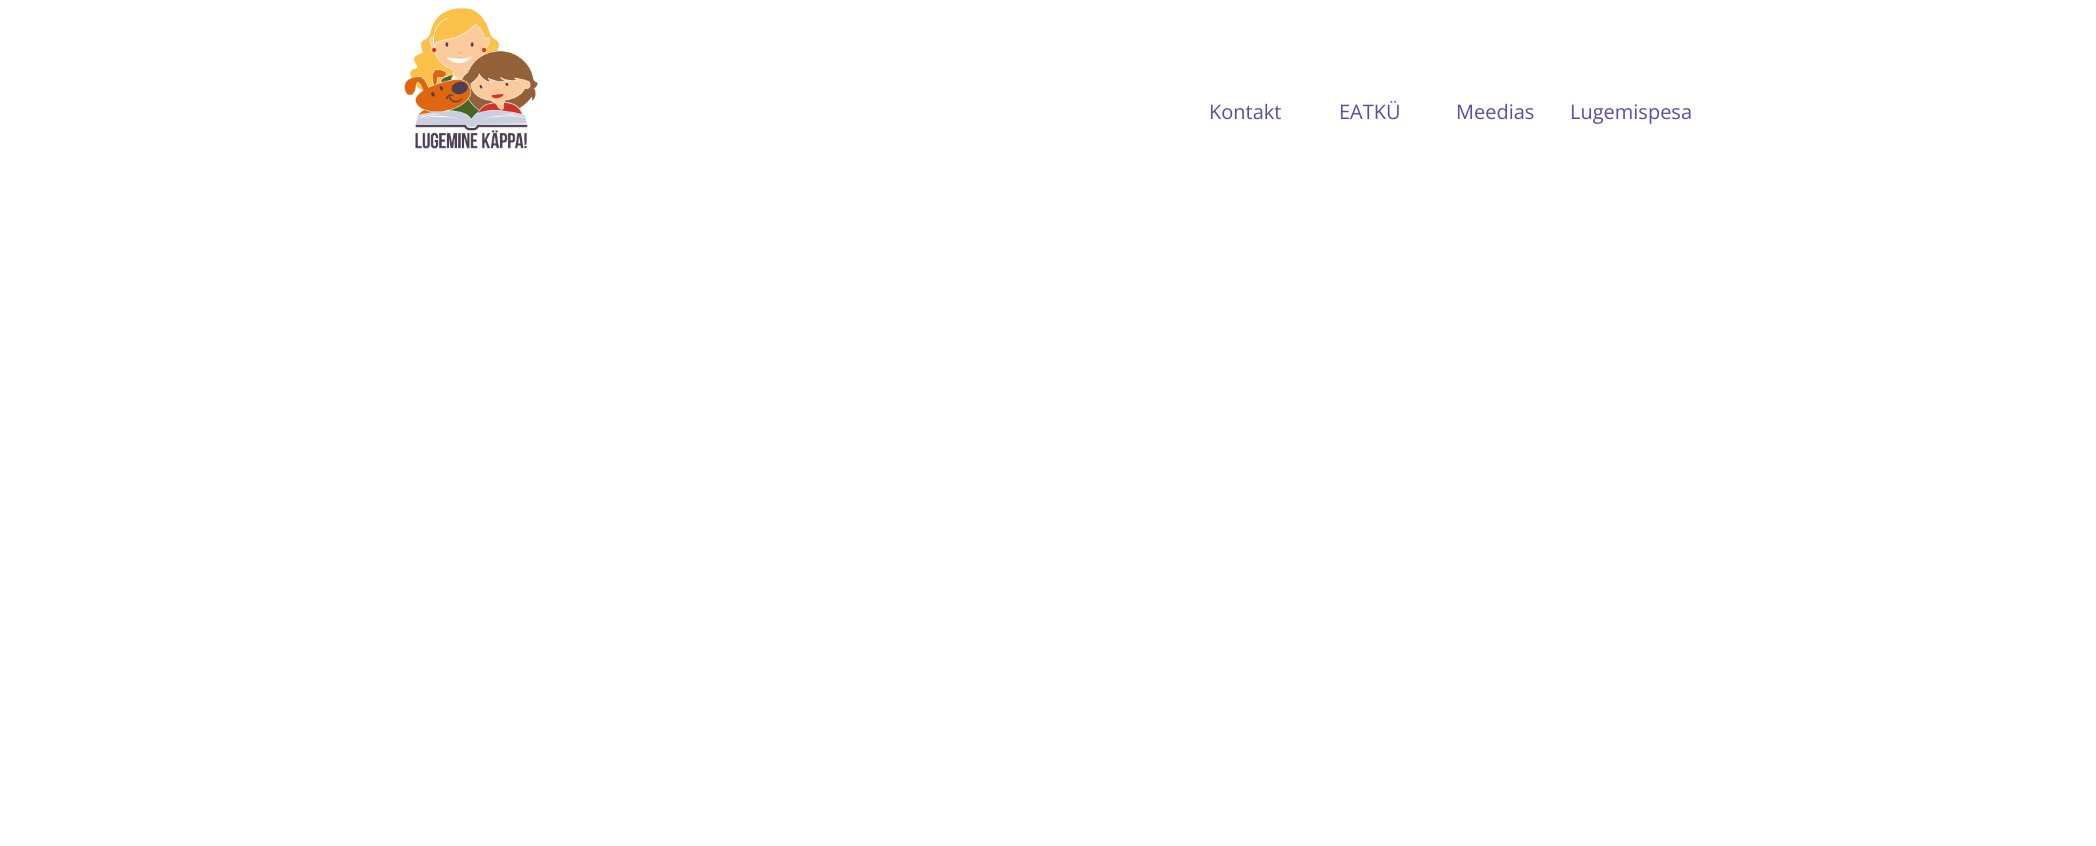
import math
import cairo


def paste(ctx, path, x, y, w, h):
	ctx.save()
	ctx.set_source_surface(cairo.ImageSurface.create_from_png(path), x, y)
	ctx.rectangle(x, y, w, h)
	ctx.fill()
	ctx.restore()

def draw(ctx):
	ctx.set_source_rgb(1, 1, 1)
	ctx.paint()
	paste(ctx, 'media/1.png', 404, 8, 134, 141)
	ctx.select_font_face('Open Sans')
	ctx.set_font_size(20)
	ctx.set_source_rgb(0.337, 0.314, 0.624)
	for x, y, s in [
		(1209, 119, 'Kontakt'),
		(1339, 119, 'EATKÜ'),
		(1456, 119, 'Meedias'),
		(1570, 119, 'Lugemispesa'),
	]:
		ctx.move_to(x, y)
		ctx.show_text(s)


surface = cairo.ImageSurface(cairo.FORMAT_RGB24, 2096, 846)
ctx = cairo.Context(surface)
options = cairo.FontOptions()
options.set_hint_metrics(cairo.HINT_METRICS_OFF)
options.set_hint_style(cairo.HINT_STYLE_NONE)
ctx.set_font_options(options)
ctx.set_miter_limit(4)
draw(ctx)
surface.write_to_png('image.png')
